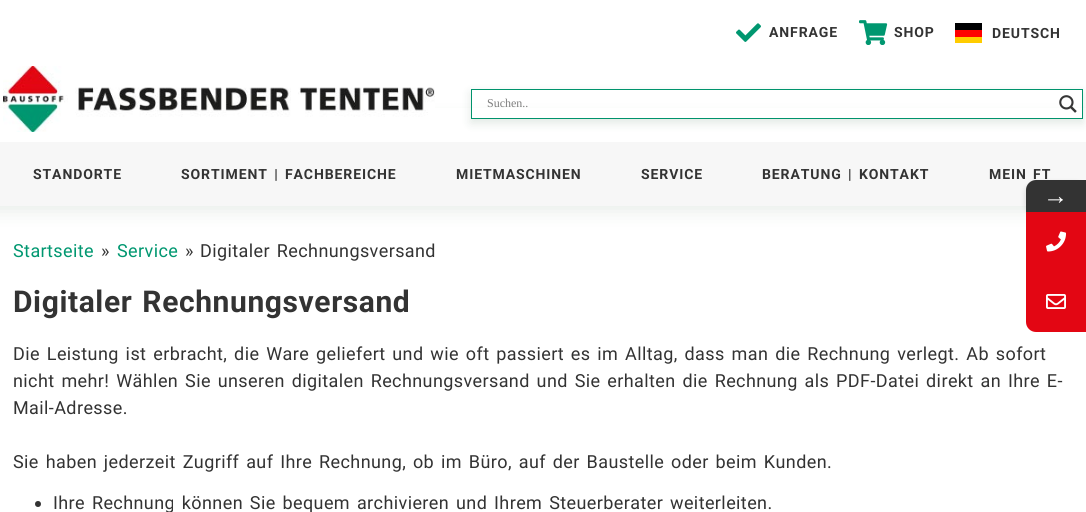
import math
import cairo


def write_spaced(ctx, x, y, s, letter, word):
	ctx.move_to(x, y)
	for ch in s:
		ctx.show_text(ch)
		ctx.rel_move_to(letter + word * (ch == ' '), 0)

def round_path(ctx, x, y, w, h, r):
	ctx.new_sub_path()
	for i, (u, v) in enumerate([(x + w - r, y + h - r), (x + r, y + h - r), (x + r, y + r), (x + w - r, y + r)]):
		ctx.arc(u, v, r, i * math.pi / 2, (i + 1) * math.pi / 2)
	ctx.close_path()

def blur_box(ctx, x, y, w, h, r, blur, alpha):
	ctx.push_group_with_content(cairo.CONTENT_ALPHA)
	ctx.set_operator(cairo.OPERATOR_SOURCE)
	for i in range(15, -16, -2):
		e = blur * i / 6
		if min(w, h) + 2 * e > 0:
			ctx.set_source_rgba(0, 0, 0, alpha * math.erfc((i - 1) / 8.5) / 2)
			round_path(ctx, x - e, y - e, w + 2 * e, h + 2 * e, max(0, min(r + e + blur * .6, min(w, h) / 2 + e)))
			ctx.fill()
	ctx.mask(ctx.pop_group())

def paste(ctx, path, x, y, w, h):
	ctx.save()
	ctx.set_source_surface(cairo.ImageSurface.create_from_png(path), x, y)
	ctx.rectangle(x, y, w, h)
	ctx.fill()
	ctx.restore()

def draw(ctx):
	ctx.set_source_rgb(1, 1, 1)
	ctx.paint()
	paste(ctx, 'media/1.png', 736, 23, 25, 19)
	ctx.select_font_face('Roboto', cairo.FONT_SLANT_NORMAL, cairo.FONT_WEIGHT_BOLD)
	ctx.set_font_size(14)
	ctx.set_source_rgb(0.2, 0.2, 0.2)
	write_spaced(ctx, 769, 37, 'ANFRAGE', 0.9, 0)
	paste(ctx, 'media/2.png', 859, 20, 29, 25)
	write_spaced(ctx, 894, 37, 'SHOP', 0.9, 0)
	ctx.set_source_rgb(1, 0.8, 0)
	ctx.rectangle(955, 37, 27, 6)
	ctx.fill()
	ctx.set_source_rgb(0, 0, 0.004)
	ctx.rectangle(955, 23, 27, 7)
	ctx.fill()
	ctx.set_source_rgb(1, 0, 0)
	ctx.rectangle(955, 30, 27, 7)
	ctx.fill()
	ctx.set_source_rgb(0.2, 0.2, 0.2)
	write_spaced(ctx, 992, 38, 'DEUTSCH', 0.9, 0)
	ctx.set_source_rgb(0.063, 0.29, 0.145)
	blur_box(ctx, -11, 122, 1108, 86, 0, 10.5, 0.13)
	ctx.set_source_rgb(1, 1, 1)
	ctx.rectangle(0, 108, 1086, 34)
	ctx.fill()
	paste(ctx, 'media/3.png', 3, 66, 432, 66)
	ctx.save()
	ctx.set_fill_rule(cairo.FILL_RULE_EVEN_ODD)
	ctx.new_path()
	ctx.move_to(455, 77)
	ctx.line_to(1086, 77)
	ctx.line_to(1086, 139)
	ctx.line_to(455, 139)
	ctx.close_path()
	ctx.move_to(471, 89)
	ctx.line_to(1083, 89)
	ctx.line_to(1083, 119)
	ctx.line_to(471, 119)
	ctx.close_path()
	ctx.clip()
	ctx.set_source_rgb(0.063, 0.29, 0.145)
	blur_box(ctx, 471, 93, 612, 30, 0, 5, 0.13)
	ctx.restore()
	ctx.rectangle(471.5, 89.5, 611, 29)
	ctx.set_source_rgb(0, 0.576, 0.424)
	ctx.set_line_width(1)
	ctx.stroke()
	ctx.select_font_face('Liberation Serif')
	ctx.set_font_size(12)
	ctx.set_source_rgb(0.49, 0.49, 0.49)
	ctx.move_to(487, 107)
	ctx.show_text('Suchen..')
	paste(ctx, 'media/4.png', 1059, 95, 18, 18)
	ctx.set_source_rgb(0.965, 0.965, 0.965)
	ctx.rectangle(0, 142, 1086, 64)
	ctx.fill()
	ctx.select_font_face('Roboto', cairo.FONT_SLANT_NORMAL, cairo.FONT_WEIGHT_BOLD)
	ctx.set_font_size(14)
	ctx.set_source_rgb(0.2, 0.2, 0.2)
	write_spaced(ctx, 33, 179, 'STANDORTE', 0.9, 0)
	write_spaced(ctx, 181, 179, 'SORTIMENT | FACHBEREICHE', 0.9, 2)
	write_spaced(ctx, 456, 179, 'MIETMASCHINEN', 0.9, 0)
	write_spaced(ctx, 641, 179, 'SERVICE', 0.9, 0)
	write_spaced(ctx, 762, 179, 'BERATUNG | KONTAKT', 0.9, 2)
	write_spaced(ctx, 989, 179, 'MEIN FT', 0.9, 2)
	ctx.set_source_rgb(0, 0, 0)
	blur_box(ctx, 1026, 183, 60, 32, 10, 3, 0.16)
	ctx.set_source_rgb(0.2, 0.2, 0.2)
	ctx.new_path()
	ctx.move_to(1036, 180)
	ctx.line_to(1086, 180)
	ctx.line_to(1086, 212)
	ctx.line_to(1026, 212)
	ctx.line_to(1026, 190)
	ctx.curve_to(1026, 184.5, 1030.5, 180, 1036, 180)
	ctx.close_path()
	ctx.fill()
	ctx.select_font_face('Liberation Serif')
	ctx.set_font_size(25)
	ctx.set_source_rgb(1, 1, 1)
	write_spaced(ctx, 1043, 204, '→', 0.4, 0)
	ctx.set_source_rgb(0.89, 0.024, 0.075)
	ctx.rectangle(1026, 212, 60, 60)
	ctx.fill()
	paste(ctx, 'media/5.png', 1046, 231, 20, 21)
	ctx.new_path()
	ctx.move_to(1026, 272)
	ctx.line_to(1086, 272)
	ctx.line_to(1086, 332)
	ctx.line_to(1036, 332)
	ctx.curve_to(1030.5, 332, 1026, 327.5, 1026, 322)
	ctx.close_path()
	ctx.fill()
	paste(ctx, 'media/6.png', 1046, 294, 20, 15)
	ctx.select_font_face('Roboto')
	ctx.set_font_size(18)
	ctx.set_source_rgb(0, 0.592, 0.439)
	write_spaced(ctx, 13, 257, 'Startseite', 0.4, 0)
	ctx.set_source_rgb(0.2, 0.2, 0.2)
	write_spaced(ctx, 101, 257, '»', 0.4, 0)
	ctx.set_source_rgb(0, 0.592, 0.439)
	write_spaced(ctx, 117, 257, 'Service', 0.4, 0)
	ctx.set_source_rgb(0.2, 0.2, 0.2)
	write_spaced(ctx, 185, 257, '»', 0.4, 0)
	write_spaced(ctx, 200, 257, 'Digitaler Rechnungsversand', 0.4, 2)
	ctx.select_font_face('Roboto', cairo.FONT_SLANT_NORMAL, cairo.FONT_WEIGHT_BOLD)
	ctx.set_font_size(30)
	write_spaced(ctx, 13, 312, 'Digitaler Rechnungsversand', 0.6, 2)
	ctx.select_font_face('Roboto')
	ctx.set_font_size(18)
	write_spaced(ctx, 13, 360, 'Die Leistung ist erbracht, die Ware geliefert und wie oft passiert es im Alltag, dass man die Rechnung verlegt. Ab sofort', 0.4, 2)
	write_spaced(ctx, 13, 387, 'nicht mehr! Wählen Sie unseren digitalen Rechnungsversand und Sie erhalten die Rechnung als PDF-Datei direkt an Ihre E-', 0.4, 2)
	write_spaced(ctx, 13, 414, 'Mail-Adresse.', 0.4, 0)
	write_spaced(ctx, 13, 468, 'Sie haben jederzeit Zugriff auf Ihre Rechnung, ob im Büro, auf der Baustelle oder beim Kunden.', 0.4, 2)
	ctx.new_path()
	ctx.arc(38, 504, 3, 0, 2 * math.pi)
	ctx.fill()
	write_spaced(ctx, 53, 509, 'Ihre Rechnung können Sie bequem archivieren und Ihrem Steuerberater weiterleiten.', 0.4, 2)


surface = cairo.ImageSurface(cairo.FORMAT_RGB24, 1086, 512)
ctx = cairo.Context(surface)
options = cairo.FontOptions()
options.set_hint_metrics(cairo.HINT_METRICS_OFF)
options.set_hint_style(cairo.HINT_STYLE_NONE)
ctx.set_font_options(options)
ctx.set_miter_limit(4)
draw(ctx)
surface.write_to_png('image.png')
